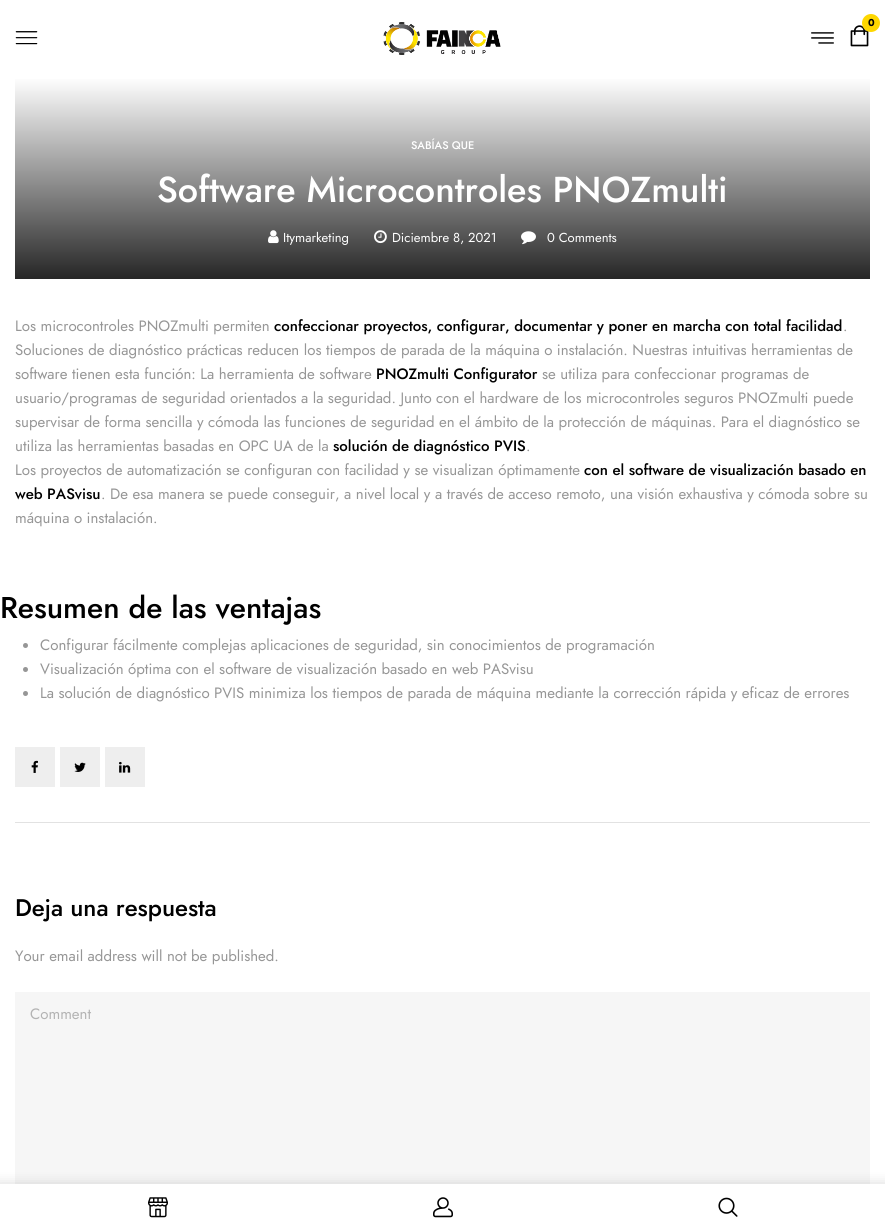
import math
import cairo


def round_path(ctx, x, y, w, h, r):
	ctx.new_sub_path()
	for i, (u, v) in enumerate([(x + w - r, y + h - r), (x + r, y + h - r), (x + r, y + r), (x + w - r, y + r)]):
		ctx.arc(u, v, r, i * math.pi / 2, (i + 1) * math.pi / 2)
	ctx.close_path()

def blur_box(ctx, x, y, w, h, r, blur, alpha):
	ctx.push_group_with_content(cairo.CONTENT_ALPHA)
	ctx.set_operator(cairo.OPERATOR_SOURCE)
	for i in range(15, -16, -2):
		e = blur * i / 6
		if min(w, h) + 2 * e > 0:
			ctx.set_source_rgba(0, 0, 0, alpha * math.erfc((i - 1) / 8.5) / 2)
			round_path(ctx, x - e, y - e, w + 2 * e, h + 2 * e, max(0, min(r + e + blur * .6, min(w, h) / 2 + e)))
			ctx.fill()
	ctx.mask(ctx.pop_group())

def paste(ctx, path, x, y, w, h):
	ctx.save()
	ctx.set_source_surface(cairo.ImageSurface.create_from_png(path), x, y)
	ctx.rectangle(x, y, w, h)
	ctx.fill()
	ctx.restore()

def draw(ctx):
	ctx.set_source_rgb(1, 1, 1)
	ctx.paint()
	paste(ctx, 'media/1.png', 15, 31, 23, 14)
	paste(ctx, 'media/2.png', 383, 22, 118, 33)
	paste(ctx, 'media/3.png', 850, 25, 19, 22)
	ctx.set_source_rgb(0.996, 0.843, 0)
	ctx.arc(871, 23, 9, 0, 2 * math.pi)
	ctx.fill()
	ctx.select_font_face('Jost', cairo.FONT_SLANT_NORMAL, cairo.FONT_WEIGHT_BOLD)
	ctx.set_font_size(10)
	ctx.set_source_rgb(0, 0, 0)
	ctx.move_to(868, 26)
	ctx.show_text('0')
	paste(ctx, 'media/4.png', 811, 32, 23, 12)
	ctx.set_source_rgb(0.961, 0.961, 0.961)
	ctx.rectangle(15, 992, 855, 192)
	ctx.fill()
	ctx.set_source_rgb(0.565, 0.565, 0.565)
	blur_box(ctx, -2, 1183, 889, 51, 0, 6, 0.3)
	ctx.set_source_rgb(1, 1, 1)
	ctx.rectangle(0, 1184, 885, 47)
	ctx.fill()
	paste(ctx, 'media/5.png', 148, 1197, 20, 21)
	paste(ctx, 'media/6.png', 433, 1197, 20, 21)
	paste(ctx, 'media/7.png', 718, 1197, 20, 20)
	gradient = cairo.LinearGradient(443, 77, 443, 279)
	gradient.add_color_stop_rgba(0, 1, 1, 1, 1)
	gradient.add_color_stop_rgba(1, 0.149, 0.149, 0.149, 1)
	ctx.set_source(gradient)
	ctx.rectangle(15, 79, 855, 200)
	ctx.fill()
	ctx.select_font_face('Jost Medium')
	ctx.set_font_size(11)
	ctx.set_source_rgb(1, 1, 1)
	ctx.move_to(411, 149)
	ctx.show_text('SABÍAS QUE')
	ctx.set_font_size(36)
	ctx.move_to(157, 202)
	ctx.show_text('Software Microcontroles PNOZmulti')
	paste(ctx, 'media/8.png', 268, 230, 11, 14)
	ctx.select_font_face('Jost')
	ctx.set_font_size(13)
	ctx.move_to(283, 242)
	ctx.show_text('Itymarketing')
	paste(ctx, 'media/9.png', 374, 230, 13, 14)
	ctx.move_to(392, 242)
	ctx.show_text('Diciembre 8, 2021')
	paste(ctx, 'media/10.png', 521, 231, 15, 14)
	ctx.move_to(547, 242)
	ctx.show_text('0 Comments')
	ctx.set_font_size(15)
	ctx.set_source_rgb(0.588, 0.588, 0.588)
	ctx.move_to(15, 331)
	ctx.show_text('Los microcontroles PNOZmulti permiten')
	ctx.select_font_face('Jost Medium')
	ctx.set_source_rgb(0, 0, 0)
	ctx.move_to(274, 331)
	ctx.show_text('confeccionar proyectos, configurar, documentar y poner en marcha con total facilidad')
	ctx.select_font_face('Jost')
	ctx.set_source_rgb(0.588, 0.588, 0.588)
	for x, y, s in [
		(843, 331, '.'),
		(15, 355, 'Soluciones de diagnóstico prácticas reducen los tiempos de parada de la máquina o instalación. Nuestras intuitivas herramientas de'),
		(15, 379, 'software tienen esta función: La herramienta de software'),
	]:
		ctx.move_to(x, y)
		ctx.show_text(s)
	ctx.select_font_face('Jost Medium')
	ctx.set_source_rgb(0, 0, 0)
	ctx.move_to(376, 379)
	ctx.show_text('PNOZmulti Configurator')
	ctx.select_font_face('Jost')
	ctx.set_source_rgb(0.588, 0.588, 0.588)
	for x, y, s in [
		(542, 379, 'se utiliza para confeccionar programas de'),
		(15, 403, 'usuario/programas de seguridad orientados a la seguridad. Junto con el hardware de los microcontroles seguros PNOZmulti puede'),
		(15, 427, 'supervisar de forma sencilla y cómoda las funciones de seguridad en el ámbito de la protección de máquinas. Para el diagnóstico se'),
		(15, 451, 'utiliza las herramientas basadas en OPC UA de la'),
	]:
		ctx.move_to(x, y)
		ctx.show_text(s)
	ctx.select_font_face('Jost Medium')
	ctx.set_source_rgb(0, 0, 0)
	ctx.move_to(333, 451)
	ctx.show_text('solución de diagnóstico PVIS')
	ctx.select_font_face('Jost')
	ctx.set_source_rgb(0.588, 0.588, 0.588)
	ctx.move_to(526, 451)
	ctx.show_text('.')
	ctx.move_to(15, 475)
	ctx.show_text('Los proyectos de automatización se configuran con facilidad y se visualizan óptimamente')
	ctx.select_font_face('Jost Medium')
	ctx.set_source_rgb(0, 0, 0)
	ctx.move_to(584, 475)
	ctx.show_text('con el software de visualización basado en')
	ctx.move_to(15, 499)
	ctx.show_text('web PASvisu')
	ctx.select_font_face('Jost')
	ctx.set_source_rgb(0.588, 0.588, 0.588)
	ctx.move_to(101, 499)
	ctx.show_text('. De esa manera se puede conseguir, a nivel local y a través de acceso remoto, una visión exhaustiva y cómoda sobre su')
	ctx.move_to(15, 523)
	ctx.show_text('máquina o instalación.')
	ctx.select_font_face('Jost Medium')
	ctx.set_font_size(30)
	ctx.set_source_rgb(0, 0, 0)
	ctx.move_to(0, 618)
	ctx.show_text('Resumen de las ventajas')
	ctx.set_source_rgb(0.588, 0.588, 0.588)
	ctx.new_path()
	ctx.arc(25.5, 645.5, 2.5, 0, 2 * math.pi)
	ctx.fill()
	ctx.select_font_face('Jost')
	ctx.set_font_size(15)
	ctx.move_to(40, 650)
	ctx.show_text('Configurar fácilmente complejas aplicaciones de seguridad, sin conocimientos de programación')
	ctx.new_path()
	ctx.arc(25.5, 669.5, 2.5, 0, 2 * math.pi)
	ctx.fill()
	ctx.move_to(40, 674)
	ctx.show_text('Visualización óptima con el software de visualización basado en web PASvisu')
	ctx.new_path()
	ctx.arc(25.5, 693.5, 2.5, 0, 2 * math.pi)
	ctx.fill()
	ctx.move_to(40, 698)
	ctx.show_text('La solución de diagnóstico PVIS minimiza los tiempos de parada de máquina mediante la corrección rápida y eficaz de errores')
	ctx.set_source_rgb(0.886, 0.886, 0.886)
	ctx.rectangle(15, 822, 855, 1)
	ctx.fill()
	ctx.set_source_rgb(0.933, 0.933, 0.933)
	ctx.rectangle(15, 747, 40, 40)
	ctx.fill()
	paste(ctx, 'media/11.png', 31, 760, 7, 13)
	ctx.rectangle(60, 747, 40, 40)
	ctx.fill()
	paste(ctx, 'media/12.png', 74, 762, 12, 10)
	ctx.rectangle(105, 747, 40, 40)
	ctx.fill()
	paste(ctx, 'media/13.png', 119, 761, 12, 12)
	ctx.select_font_face('Jost Medium')
	ctx.set_font_size(24)
	ctx.set_source_rgb(0, 0, 0)
	ctx.move_to(15, 916)
	ctx.show_text('Deja una respuesta')
	ctx.select_font_face('Jost')
	ctx.set_font_size(15)
	ctx.set_source_rgb(0.588, 0.588, 0.588)
	ctx.move_to(15, 961)
	ctx.show_text('Your email address will not be published.')
	ctx.set_source_rgb(0.702, 0.702, 0.702)
	ctx.move_to(30, 1019)
	ctx.show_text('Comment')


surface = cairo.ImageSurface(cairo.FORMAT_RGB24, 885, 1231)
ctx = cairo.Context(surface)
options = cairo.FontOptions()
options.set_hint_metrics(cairo.HINT_METRICS_OFF)
options.set_hint_style(cairo.HINT_STYLE_NONE)
ctx.set_font_options(options)
ctx.set_miter_limit(4)
draw(ctx)
surface.write_to_png('image.png')
